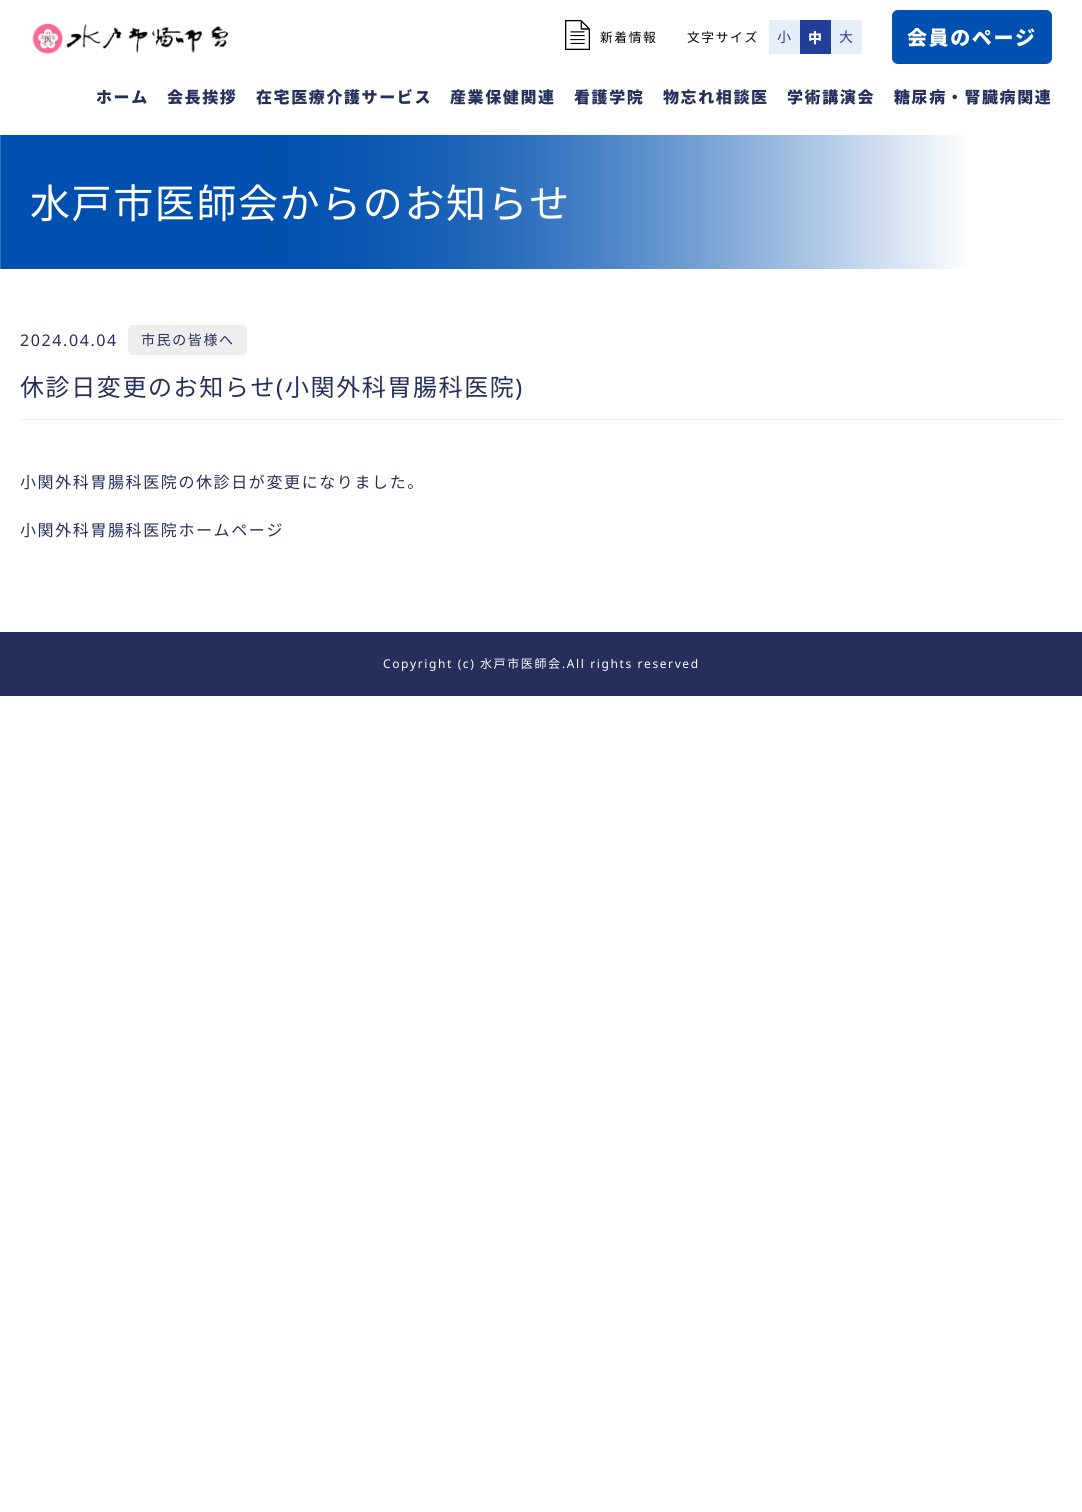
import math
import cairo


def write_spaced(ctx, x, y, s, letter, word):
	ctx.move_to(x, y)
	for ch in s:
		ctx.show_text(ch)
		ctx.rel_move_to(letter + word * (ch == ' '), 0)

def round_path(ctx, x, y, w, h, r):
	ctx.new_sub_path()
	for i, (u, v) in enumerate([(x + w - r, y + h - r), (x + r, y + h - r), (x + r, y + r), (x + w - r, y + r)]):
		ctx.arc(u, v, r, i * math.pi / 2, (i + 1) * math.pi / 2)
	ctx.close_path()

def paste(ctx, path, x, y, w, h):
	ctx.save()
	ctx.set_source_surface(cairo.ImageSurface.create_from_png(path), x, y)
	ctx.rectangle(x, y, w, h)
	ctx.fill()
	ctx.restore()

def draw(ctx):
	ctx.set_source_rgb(1, 1, 1)
	ctx.paint()
	paste(ctx, 'media/1.png', 30, 23, 199, 31)
	paste(ctx, 'media/2.png', 565, 20, 25, 30)
	ctx.select_font_face('Noto Sans CJK JP')
	ctx.set_font_size(12.75)
	ctx.set_source_rgb(0, 0, 0)
	write_spaced(ctx, 600, 42, '新着情報', 1.6, 0)
	write_spaced(ctx, 687, 42, '文字サイズ', 1.6, 0)
	ctx.set_source_rgb(0.902, 0.937, 0.976)
	ctx.rectangle(769, 20, 31, 34)
	ctx.fill()
	ctx.set_font_size(14)
	ctx.set_source_rgb(0.137, 0.243, 0.6)
	write_spaced(ctx, 777, 42, '小', 1.6, 0)
	ctx.rectangle(800, 20, 31, 34)
	ctx.fill()
	ctx.select_font_face('Noto Sans CJK JP Black')
	ctx.set_source_rgb(1, 1, 1)
	write_spaced(ctx, 808, 43, '中', 1.6, 0)
	ctx.set_source_rgb(0.902, 0.937, 0.976)
	ctx.rectangle(831, 20, 31, 34)
	ctx.fill()
	ctx.select_font_face('Noto Sans CJK JP')
	ctx.set_source_rgb(0.137, 0.243, 0.6)
	write_spaced(ctx, 839, 42, '大', 1.6, 0)
	ctx.set_source_rgb(0, 0.314, 0.686)
	round_path(ctx, 892, 10, 160, 54, 6)
	ctx.fill()
	ctx.select_font_face('Noto Sans CJK JP Black')
	ctx.set_font_size(20)
	ctx.set_source_rgb(1, 1, 1)
	write_spaced(ctx, 907, 45, '会員のページ', 1.6, 0)
	ctx.set_font_size(16)
	ctx.set_source_rgb(0.145, 0.184, 0.361)
	for x, y, s in [
		(96, 103, 'ホーム'),
		(167, 103, '会長挨拶'),
		(256, 103, '在宅医療介護サービス'),
		(450, 103, '産業保健関連'),
		(574, 103, '看護学院'),
		(663, 103, '物忘れ相談医'),
		(787, 103, '学術講演会'),
		(894, 103, '糖尿病・腎臓病関連'),
	]:
		write_spaced(ctx, x, y, s, 1.6, 0)
	paste(ctx, 'media/3.png', 0, 135, 968, 134)
	ctx.select_font_face('Noto Sans CJK JP')
	ctx.set_font_size(40)
	ctx.set_source_rgb(1, 1, 1)
	write_spaced(ctx, 30, 218, '水戸市医師会からのお知らせ', 1.6, 0)
	ctx.select_font_face('Noto Sans')
	ctx.set_font_size(16)
	ctx.set_source_rgb(0.145, 0.184, 0.361)
	write_spaced(ctx, 20, 346, '2024.04.04', 1.6, 0)
	ctx.set_source_rgb(0.933, 0.933, 0.933)
	round_path(ctx, 128, 325, 119, 30, 5)
	ctx.fill()
	ctx.select_font_face('Noto Sans CJK JP')
	ctx.set_font_size(14)
	ctx.set_source_rgb(0.145, 0.184, 0.361)
	write_spaced(ctx, 141, 345, '市民の皆様へ', 1.6, 0)
	ctx.set_source_rgb(0.933, 0.933, 0.933)
	ctx.rectangle(20, 419, 1042, 1)
	ctx.fill()
	ctx.set_font_size(24)
	ctx.set_source_rgb(0.145, 0.184, 0.361)
	write_spaced(ctx, 20, 396, '休診日変更のお知らせ', 1.6, 0)
	ctx.select_font_face('Noto Sans')
	write_spaced(ctx, 276, 396, '(', 1.6, 0)
	ctx.select_font_face('Noto Sans CJK JP')
	write_spaced(ctx, 285, 396, '小関外科胃腸科医院', 1.6, 0)
	ctx.select_font_face('Noto Sans')
	write_spaced(ctx, 515, 396, ')', 1.6, 0)
	ctx.select_font_face('Noto Sans CJK JP')
	ctx.set_font_size(16)
	write_spaced(ctx, 20, 488, '小関外科胃腸科医院の休診日が変更になりました。', 1.6, 0)
	write_spaced(ctx, 20, 536, '小関外科胃腸科医院ホームページ', 1.6, 0)
	ctx.rectangle(0, 632, 1082, 64)
	ctx.fill()
	ctx.select_font_face('Noto Sans')
	ctx.set_font_size(12)
	ctx.set_source_rgb(1, 1, 1)
	write_spaced(ctx, 383, 668, 'Copyright (c)', 1.6, 0)
	ctx.select_font_face('Noto Sans CJK JP')
	write_spaced(ctx, 480, 668, '水戸市医師会', 1.6, 0)
	ctx.select_font_face('Noto Sans')
	write_spaced(ctx, 562, 668, '.All rights reserved', 1.6, 0)


surface = cairo.ImageSurface(cairo.FORMAT_RGB24, 1082, 1512)
ctx = cairo.Context(surface)
options = cairo.FontOptions()
options.set_hint_metrics(cairo.HINT_METRICS_OFF)
options.set_hint_style(cairo.HINT_STYLE_NONE)
ctx.set_font_options(options)
ctx.set_miter_limit(4)
draw(ctx)
surface.write_to_png('image.png')
